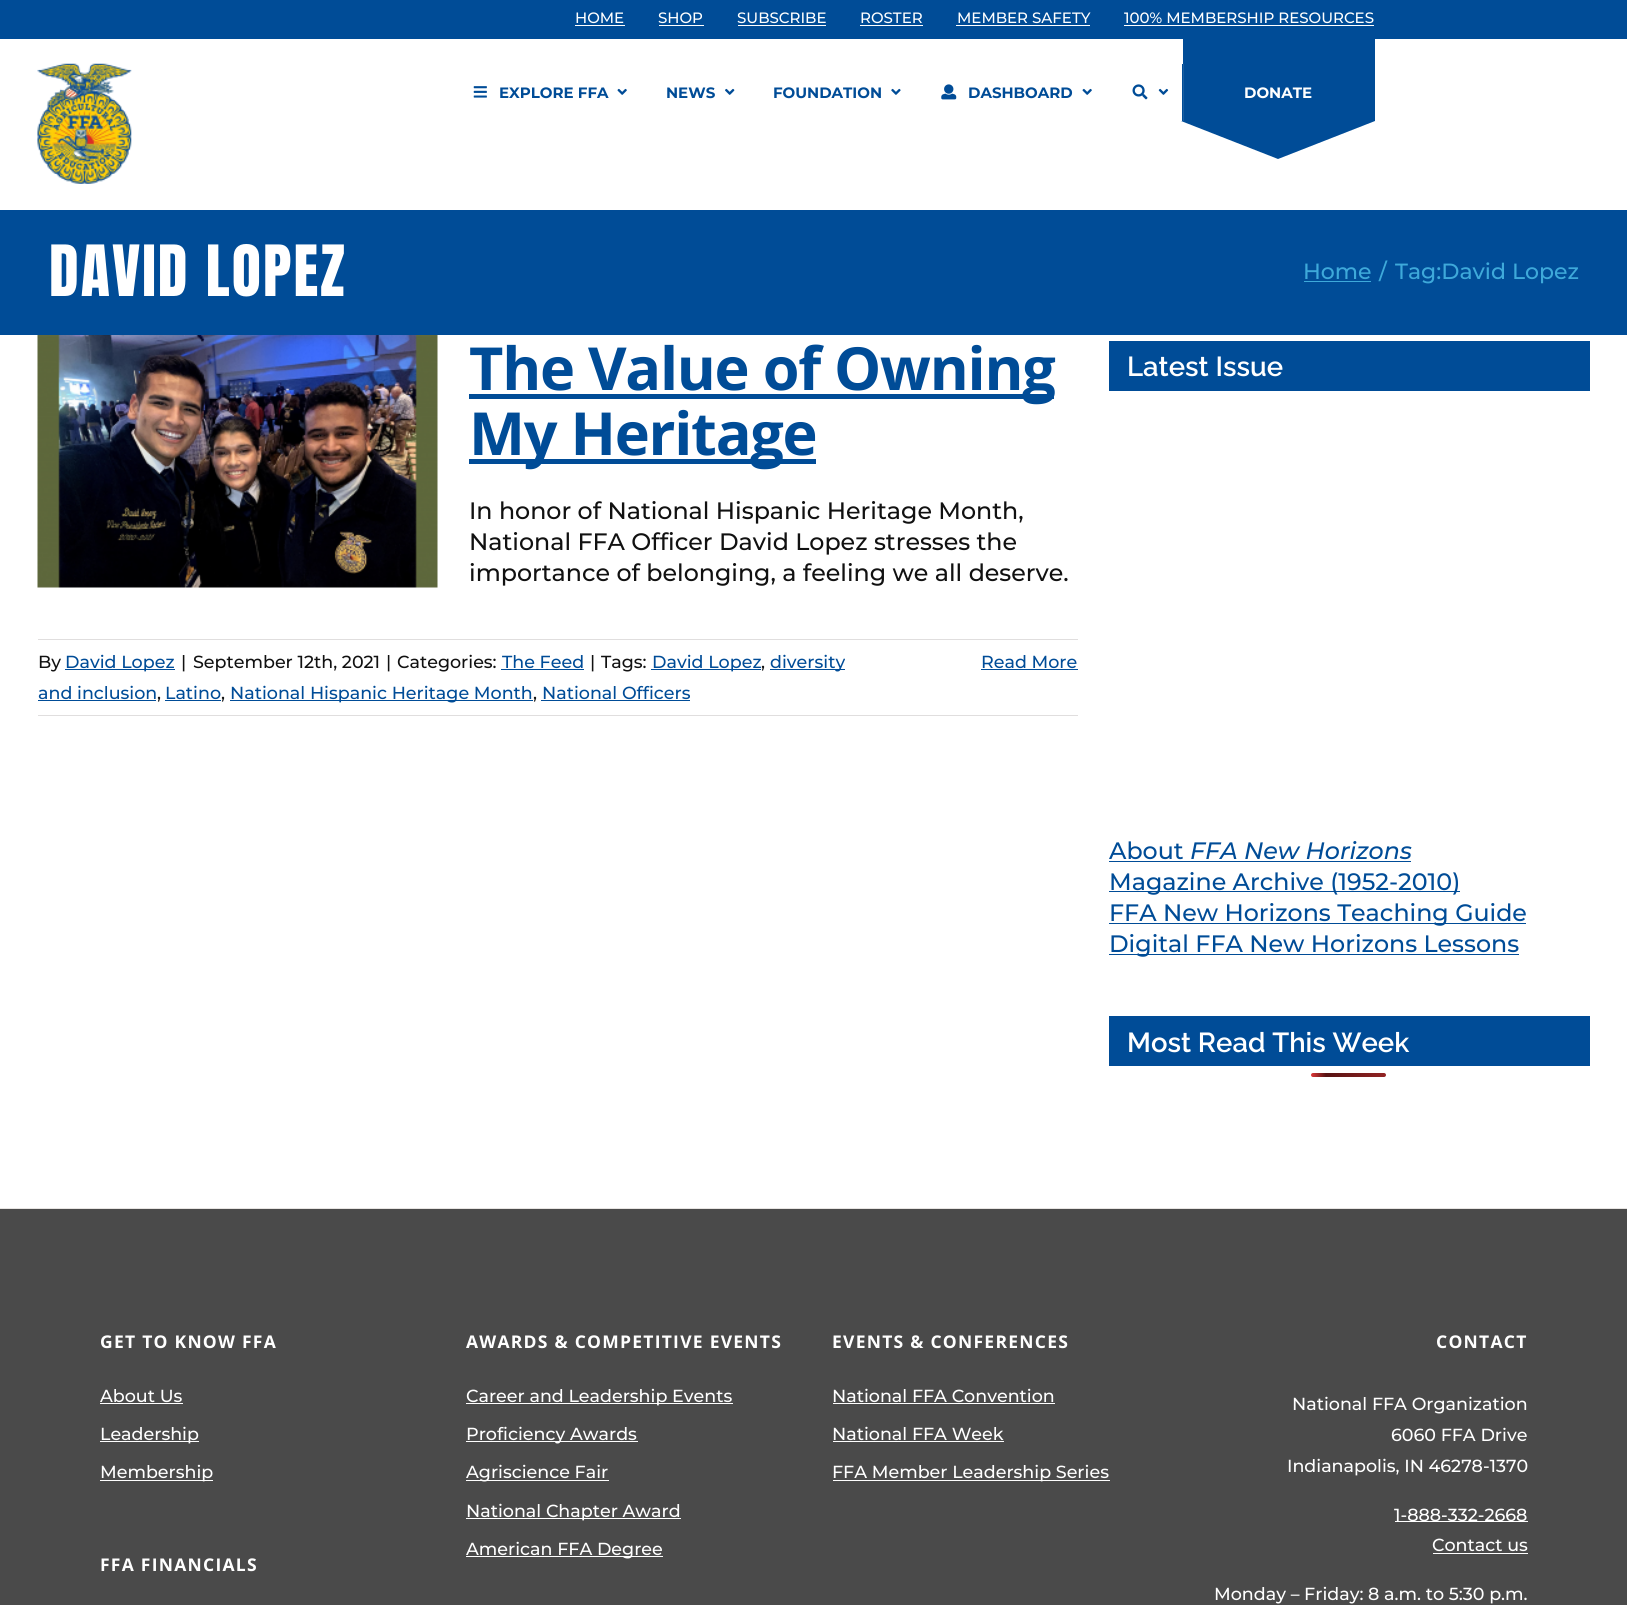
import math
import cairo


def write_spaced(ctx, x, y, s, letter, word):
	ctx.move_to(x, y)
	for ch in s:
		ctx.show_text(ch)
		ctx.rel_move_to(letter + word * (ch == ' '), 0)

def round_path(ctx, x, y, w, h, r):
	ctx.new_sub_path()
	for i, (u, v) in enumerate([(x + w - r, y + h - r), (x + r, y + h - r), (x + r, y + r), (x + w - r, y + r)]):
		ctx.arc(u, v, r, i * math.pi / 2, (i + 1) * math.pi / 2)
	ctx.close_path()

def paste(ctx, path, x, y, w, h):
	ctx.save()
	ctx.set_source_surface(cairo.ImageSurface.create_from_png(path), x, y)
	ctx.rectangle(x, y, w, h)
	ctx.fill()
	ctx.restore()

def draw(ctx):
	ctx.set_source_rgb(1, 1, 1)
	ctx.paint()
	ctx.set_source_rgb(0, 0.298, 0.592)
	ctx.rectangle(0, 0, 1627, 39)
	ctx.fill()
	ctx.select_font_face('Montserrat Medium')
	ctx.set_font_size(15)
	ctx.set_source_rgb(1, 1, 1)
	ctx.move_to(575, 23)
	ctx.show_text('HOME')
	ctx.rectangle(575, 25, 50, 1)
	ctx.fill()
	ctx.move_to(658, 23)
	ctx.show_text('SHOP')
	ctx.rectangle(659, 25, 45, 1)
	ctx.fill()
	ctx.move_to(737, 23)
	ctx.show_text('SUBSCRIBE')
	ctx.rectangle(738, 25, 88, 1)
	ctx.fill()
	ctx.move_to(860, 23)
	ctx.show_text('ROSTER')
	ctx.rectangle(860, 25, 63, 1)
	ctx.fill()
	ctx.move_to(957, 23)
	ctx.show_text('MEMBER SAFETY')
	ctx.rectangle(956, 25, 134, 1)
	ctx.fill()
	ctx.move_to(1124, 23)
	ctx.show_text('100% MEMBERSHIP RESOURCES')
	ctx.rectangle(1124, 25, 250, 1)
	ctx.fill()
	paste(ctx, 'media/1.png', 37, 63, 95, 121)
	paste(ctx, 'media/2.png', 473, 86, 14, 12)
	ctx.select_font_face('Montserrat', cairo.FONT_SLANT_NORMAL, cairo.FONT_WEIGHT_BOLD)
	ctx.set_source_rgb(0, 0.298, 0.592)
	ctx.move_to(499, 98)
	ctx.show_text('EXPLORE FFA')
	paste(ctx, 'media/3.png', 617, 88, 10, 7)
	ctx.move_to(666, 98)
	ctx.show_text('NEWS')
	paste(ctx, 'media/4.png', 725, 88, 10, 7)
	ctx.move_to(773, 98)
	ctx.show_text('FOUNDATION')
	paste(ctx, 'media/5.png', 891, 88, 10, 7)
	paste(ctx, 'media/6.png', 941, 84, 16, 16)
	ctx.move_to(968, 98)
	ctx.show_text('DASHBOARD')
	paste(ctx, 'media/3.png', 1082, 88, 10, 7)
	paste(ctx, 'media/7.png', 1132, 84, 16, 16)
	paste(ctx, 'media/8.png', 1158, 88, 11, 7)
	ctx.rectangle(1183, 39, 192, 25)
	ctx.rectangle(1182, 64, 193, 57)
	ctx.fill()
	ctx.set_source_rgb(0.102, 0.369, 0.631)
	ctx.rectangle(1183, 64, 1, 57)
	ctx.fill()
	ctx.set_source_rgb(1, 1, 1)
	ctx.move_to(1244, 98)
	ctx.show_text('DONATE')
	ctx.set_source_rgb(0, 0.298, 0.592)
	ctx.set_fill_rule(cairo.FILL_RULE_EVEN_ODD)
	ctx.new_path()
	ctx.move_to(1181, 121)
	ctx.line_to(1375, 121)
	ctx.line_to(1278, 159)
	ctx.close_path()
	ctx.fill()
	ctx.rectangle(0, 210, 1627, 125)
	ctx.fill()
	ctx.select_font_face('Anton')
	ctx.set_font_size(60)
	ctx.set_source_rgb(1, 1, 1)
	write_spaced(ctx, 49, 296, 'DAVID LOPEZ', 2.1, 0)
	ctx.select_font_face('Montserrat Medium')
	ctx.set_font_size(22)
	ctx.set_source_rgb(0.243, 0.663, 0.855)
	ctx.move_to(1303, 279)
	ctx.show_text('Home')
	ctx.rectangle(1304, 281, 67, 1)
	ctx.fill()
	ctx.move_to(1379, 279)
	ctx.show_text('/')
	ctx.move_to(1395, 279)
	ctx.show_text('Tag:David Lopez')
	paste(ctx, 'media/9.png', 37, 335, 401, 253)
	ctx.set_source_rgb(0, 0.298, 0.592)
	ctx.rectangle(469, 394, 585, 5)
	ctx.fill()
	ctx.select_font_face('Open Sans', cairo.FONT_SLANT_NORMAL, cairo.FONT_WEIGHT_BOLD)
	ctx.set_font_size(59.4)
	write_spaced(ctx, 469, 390, 'The Value of Owning', -1.25, 0)
	ctx.rectangle(469, 459, 347, 5)
	ctx.fill()
	write_spaced(ctx, 469, 455, 'My Heritage', -1.25, 0)
	ctx.select_font_face('Montserrat Medium')
	ctx.set_font_size(23.75)
	ctx.set_source_rgb(0.067, 0.067, 0.067)
	for x, y, s in [
		(469, 519, 'In honor of National Hispanic Heritage Month,'),
		(469, 550, 'National FFA Officer David Lopez stresses the'),
		(469, 581, 'importance of belonging, a feeling we all deserve.'),
	]:
		ctx.move_to(x, y)
		ctx.show_text(s)
	ctx.set_source_rgb(0.878, 0.871, 0.871)
	ctx.rectangle(38, 639, 1040, 1)
	ctx.fill()
	ctx.rectangle(38, 715, 1040, 1)
	ctx.fill()
	ctx.set_font_size(17.5)
	ctx.set_source_rgb(0.067, 0.067, 0.067)
	ctx.move_to(38, 668)
	ctx.show_text('By')
	ctx.set_source_rgb(0, 0.298, 0.592)
	ctx.rectangle(65, 669, 110, 1)
	ctx.fill()
	ctx.move_to(65, 668)
	ctx.show_text('David Lopez')
	ctx.set_source_rgb(0.067, 0.067, 0.067)
	for x, y, s in [
		(181, 668, '|'),
		(193, 668, 'September 12th, 2021'),
		(386, 668, '|'),
		(397, 668, 'Categories:'),
	]:
		ctx.move_to(x, y)
		ctx.show_text(s)
	ctx.set_source_rgb(0, 0.298, 0.592)
	ctx.move_to(502, 668)
	ctx.show_text('The Feed')
	ctx.rectangle(501, 669, 83, 1)
	ctx.fill()
	ctx.set_source_rgb(0.067, 0.067, 0.067)
	ctx.move_to(590, 668)
	ctx.show_text('|')
	ctx.move_to(601, 668)
	ctx.show_text('Tags:')
	ctx.set_source_rgb(0, 0.298, 0.592)
	ctx.rectangle(651, 669, 110, 1)
	ctx.fill()
	ctx.move_to(652, 668)
	ctx.show_text('David Lopez')
	ctx.set_source_rgb(0.067, 0.067, 0.067)
	ctx.move_to(761, 668)
	ctx.show_text(',')
	ctx.set_source_rgb(0, 0.298, 0.592)
	ctx.rectangle(770, 669, 75, 1)
	ctx.fill()
	ctx.move_to(770, 668)
	ctx.show_text('diversity')
	ctx.move_to(38, 699)
	ctx.show_text('and inclusion')
	ctx.set_source_rgb(0.067, 0.067, 0.067)
	ctx.move_to(157, 699)
	ctx.show_text(',')
	ctx.set_source_rgb(0, 0.298, 0.592)
	ctx.rectangle(38, 700, 118, 1)
	ctx.fill()
	ctx.move_to(165, 699)
	ctx.show_text('Latino')
	ctx.set_source_rgb(0.067, 0.067, 0.067)
	ctx.move_to(221, 699)
	ctx.show_text(',')
	ctx.set_source_rgb(0, 0.298, 0.592)
	ctx.rectangle(165, 700, 56, 1)
	ctx.fill()
	ctx.rectangle(230, 700, 303, 1)
	ctx.fill()
	ctx.move_to(230, 699)
	ctx.show_text('National Hispanic Heritage Month')
	ctx.set_source_rgb(0.067, 0.067, 0.067)
	ctx.move_to(533, 699)
	ctx.show_text(',')
	ctx.set_source_rgb(0, 0.298, 0.592)
	ctx.rectangle(541, 700, 149, 1)
	ctx.fill()
	ctx.move_to(542, 699)
	ctx.show_text('National Officers')
	ctx.move_to(981, 668)
	ctx.show_text('Read More')
	ctx.rectangle(981, 669, 97, 1)
	ctx.fill()
	ctx.rectangle(1109, 341, 481, 50)
	ctx.fill()
	ctx.select_font_face('Raleway Thin')
	ctx.set_font_size(27.5)
	ctx.set_source_rgb(1, 1, 1)
	ctx.move_to(1127, 376)
	ctx.show_text('Latest Issue')
	ctx.select_font_face('Montserrat Medium')
	ctx.set_font_size(23.75)
	ctx.set_source_rgb(0, 0.298, 0.592)
	ctx.move_to(1109, 859)
	ctx.show_text('About')
	ctx.rectangle(1109, 861, 302, 1)
	ctx.fill()
	ctx.select_font_face('Montserrat Medium', cairo.FONT_SLANT_ITALIC)
	ctx.move_to(1190, 859)
	ctx.show_text('FFA New Horizons')
	ctx.rectangle(1109, 891, 351, 1)
	ctx.fill()
	ctx.select_font_face('Montserrat Medium')
	ctx.move_to(1109, 890)
	ctx.show_text('Magazine Archive (1952-2010)')
	ctx.rectangle(1109, 923, 417, 1)
	ctx.fill()
	ctx.move_to(1109, 921)
	ctx.show_text('FFA New Horizons Teaching Guide')
	ctx.rectangle(1109, 954, 410, 1)
	ctx.fill()
	ctx.move_to(1109, 952)
	ctx.show_text('Digital FFA New Horizons Lessons')
	ctx.rectangle(1109, 1016, 481, 50)
	ctx.fill()
	ctx.select_font_face('Raleway Thin')
	ctx.set_font_size(27.5)
	ctx.set_source_rgb(1, 1, 1)
	ctx.move_to(1127, 1052)
	ctx.show_text('Most Read This Week')
	gradient = cairo.LinearGradient(1311, 1074, 1461, 1074)
	gradient.add_color_stop_rgba(0, 0.867, 0.216, 0.216, 1)
	gradient.add_color_stop_rgba(0.1, 0.341, 0.075, 0.075, 1)
	gradient.add_color_stop_rgba(1, 0.867, 0.216, 0.216, 1)
	ctx.set_source(gradient)
	round_path(ctx, 1311, 1073, 75, 4, 2)
	ctx.fill()
	ctx.set_source_rgb(0.29, 0.29, 0.29)
	ctx.rectangle(0, 1209, 1627, 396)
	ctx.fill()
	ctx.set_source_rgb(0.906, 0.894, 0.886)
	ctx.rectangle(0, 1208, 1627, 1)
	ctx.fill()
	ctx.select_font_face('Open Sans', cairo.FONT_SLANT_NORMAL, cairo.FONT_WEIGHT_BOLD)
	ctx.set_font_size(17.5)
	ctx.set_source_rgb(1, 1, 1)
	write_spaced(ctx, 100, 1348, 'GET TO KNOW FFA', 1.25, 0)
	ctx.select_font_face('Montserrat Medium')
	ctx.move_to(100, 1402)
	ctx.show_text('About Us')
	ctx.rectangle(100, 1403, 83, 1)
	ctx.fill()
	ctx.rectangle(100, 1441, 99, 1)
	ctx.fill()
	ctx.move_to(100, 1440)
	ctx.show_text('Leadership')
	ctx.rectangle(100, 1480, 113, 1)
	ctx.fill()
	ctx.move_to(100, 1478)
	ctx.show_text('Membership')
	ctx.select_font_face('Open Sans', cairo.FONT_SLANT_NORMAL, cairo.FONT_WEIGHT_BOLD)
	write_spaced(ctx, 100, 1571, 'FFA FINANCIALS', 1.25, 0)
	write_spaced(ctx, 466, 1348, 'AWARDS & COMPETITIVE EVENTS', 1.25, 0)
	ctx.rectangle(466, 1403, 267, 1)
	ctx.fill()
	ctx.select_font_face('Montserrat Medium')
	ctx.move_to(466, 1402)
	ctx.show_text('Career and Leadership Events')
	ctx.rectangle(466, 1441, 172, 1)
	ctx.fill()
	ctx.move_to(466, 1440)
	ctx.show_text('Proficiency Awards')
	ctx.rectangle(466, 1480, 143, 1)
	ctx.fill()
	ctx.move_to(466, 1478)
	ctx.show_text('Agriscience Fair')
	ctx.rectangle(466, 1518, 215, 1)
	ctx.fill()
	ctx.move_to(466, 1517)
	ctx.show_text('National Chapter Award')
	ctx.rectangle(466, 1556, 197, 1)
	ctx.fill()
	ctx.move_to(466, 1555)
	ctx.show_text('American FFA Degree')
	ctx.select_font_face('Open Sans', cairo.FONT_SLANT_NORMAL, cairo.FONT_WEIGHT_BOLD)
	write_spaced(ctx, 832, 1348, 'EVENTS & CONFERENCES', 1.25, 0)
	ctx.select_font_face('Montserrat Medium')
	ctx.move_to(832, 1402)
	ctx.show_text('National FFA Convention')
	ctx.rectangle(833, 1403, 222, 1)
	ctx.fill()
	ctx.move_to(832, 1440)
	ctx.show_text('National FFA Week')
	ctx.rectangle(833, 1441, 171, 1)
	ctx.fill()
	ctx.rectangle(833, 1480, 277, 1)
	ctx.fill()
	ctx.move_to(832, 1478)
	ctx.show_text('FFA Member Leadership Series')
	ctx.select_font_face('Open Sans', cairo.FONT_SLANT_NORMAL, cairo.FONT_WEIGHT_BOLD)
	write_spaced(ctx, 1436, 1348, 'CONTACT', 1.25, 0)
	ctx.select_font_face('Montserrat Medium')
	for x, y, s in [
		(1292, 1410, 'National FFA Organization'),
		(1391, 1441, '6060 FFA Drive'),
		(1287, 1472, 'Indianapolis, IN 46278-1370'),
	]:
		ctx.move_to(x, y)
		ctx.show_text(s)
	ctx.rectangle(1395, 1521, 133, 1)
	ctx.fill()
	ctx.move_to(1394, 1521)
	ctx.show_text('1-888-332-2668')
	ctx.move_to(1432, 1551)
	ctx.show_text('Contact us')
	ctx.rectangle(1433, 1553, 95, 1)
	ctx.fill()
	ctx.move_to(1214, 1600)
	ctx.show_text('Monday – Friday: 8 a.m. to 5:30 p.m.')


surface = cairo.ImageSurface(cairo.FORMAT_RGB24, 1627, 1605)
ctx = cairo.Context(surface)
options = cairo.FontOptions()
options.set_hint_metrics(cairo.HINT_METRICS_OFF)
options.set_hint_style(cairo.HINT_STYLE_NONE)
ctx.set_font_options(options)
ctx.set_miter_limit(4)
draw(ctx)
surface.write_to_png('image.png')
